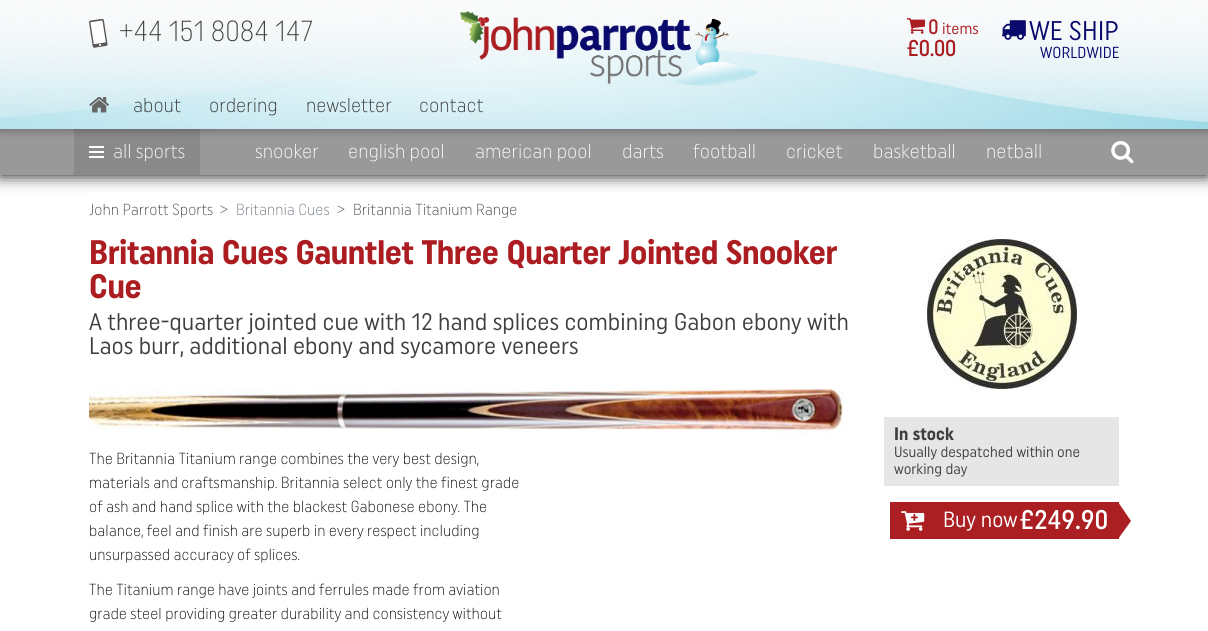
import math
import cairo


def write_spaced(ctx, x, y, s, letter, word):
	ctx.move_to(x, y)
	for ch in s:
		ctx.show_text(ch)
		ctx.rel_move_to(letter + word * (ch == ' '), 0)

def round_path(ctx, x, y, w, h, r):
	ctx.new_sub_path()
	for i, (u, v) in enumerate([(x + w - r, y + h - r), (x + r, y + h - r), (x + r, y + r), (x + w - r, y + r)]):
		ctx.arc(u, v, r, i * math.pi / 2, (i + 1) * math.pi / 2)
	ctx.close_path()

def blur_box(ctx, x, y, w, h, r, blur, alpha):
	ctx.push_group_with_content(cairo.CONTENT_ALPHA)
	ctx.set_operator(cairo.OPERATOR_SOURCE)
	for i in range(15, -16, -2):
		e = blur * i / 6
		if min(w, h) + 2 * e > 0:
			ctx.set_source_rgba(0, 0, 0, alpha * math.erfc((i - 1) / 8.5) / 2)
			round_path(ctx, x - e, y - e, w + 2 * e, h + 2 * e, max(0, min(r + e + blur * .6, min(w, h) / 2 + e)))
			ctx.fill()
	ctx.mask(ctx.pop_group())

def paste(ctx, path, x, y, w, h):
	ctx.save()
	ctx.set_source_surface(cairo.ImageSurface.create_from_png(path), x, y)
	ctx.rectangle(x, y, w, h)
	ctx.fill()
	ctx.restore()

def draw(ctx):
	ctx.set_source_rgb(1, 1, 1)
	ctx.paint()
	ctx.set_source_rgb(0, 0, 0)
	blur_box(ctx, 0, 0, 1208, 175, 0, 8, 1)
	paste(ctx, 'media/1.png', 0, 0, 1208, 129)
	paste(ctx, 'media/2.png', 89, 19, 19, 29)
	ctx.select_font_face('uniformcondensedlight')
	ctx.set_font_size(29)
	ctx.set_source_rgb(0.247, 0.247, 0.247)
	ctx.move_to(119, 41)
	ctx.show_text('+44 151 8084 147')
	paste(ctx, 'media/3.png', 460, 11, 300, 75)
	paste(ctx, 'media/4.png', 907, 18, 19, 16)
	ctx.select_font_face('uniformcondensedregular', cairo.FONT_SLANT_NORMAL, cairo.FONT_WEIGHT_BOLD)
	ctx.set_font_size(20)
	ctx.set_source_rgb(0.671, 0.114, 0.129)
	ctx.move_to(928, 34)
	ctx.show_text('0')
	ctx.select_font_face('uniformcondensedregular')
	ctx.set_font_size(16)
	ctx.move_to(942, 34)
	ctx.show_text('items')
	ctx.select_font_face('uniformcondensedregular', cairo.FONT_SLANT_NORMAL, cairo.FONT_WEIGHT_BOLD)
	ctx.set_font_size(22)
	ctx.move_to(907, 56)
	ctx.show_text('£0.00')
	paste(ctx, 'media/5.png', 1002, 20, 24, 20)
	ctx.select_font_face('uniformcondensedregular')
	ctx.set_font_size(27)
	ctx.set_source_rgb(0.035, 0.035, 0.427)
	ctx.move_to(1029, 40)
	ctx.show_text('WE SHIP')
	ctx.set_font_size(16)
	ctx.move_to(1040, 58)
	ctx.show_text('WORLDWIDE')
	paste(ctx, 'media/6.png', 89, 97, 20, 16)
	ctx.select_font_face('uniformcondensedlight')
	ctx.set_font_size(20)
	ctx.set_source_rgb(0.196, 0.196, 0.196)
	for x, y, s in [
		(133, 112, 'about'),
		(209, 112, 'ordering'),
		(306, 112, 'newsletter'),
		(419, 112, 'contact'),
	]:
		ctx.move_to(x, y)
		ctx.show_text(s)
	gradient = cairo.LinearGradient(604, 129, 604, 175)
	gradient.add_color_stop_rgba(0, 0.486, 0.486, 0.486, 1)
	gradient.add_color_stop_rgba(0.11, 0.561, 0.561, 0.561, 1)
	gradient.add_color_stop_rgba(0.19, 0.592, 0.592, 0.592, 1)
	gradient.add_color_stop_rgba(0.25, 0.6, 0.6, 0.6, 1)
	gradient.add_color_stop_rgba(1, 0.6, 0.6, 0.6, 1)
	ctx.set_source(gradient)
	ctx.rectangle(0, 129, 1208, 46)
	ctx.fill()
	gradient = cairo.LinearGradient(604, 129, 604, 175)
	gradient.add_color_stop_rgba(0, 0.439, 0.439, 0.439, 1)
	gradient.add_color_stop_rgba(0.11, 0.506, 0.506, 0.506, 1)
	gradient.add_color_stop_rgba(0.19, 0.533, 0.533, 0.533, 1)
	gradient.add_color_stop_rgba(0.25, 0.541, 0.541, 0.541, 1)
	gradient.add_color_stop_rgba(1, 0.541, 0.541, 0.541, 1)
	ctx.set_source(gradient)
	ctx.rectangle(74, 129, 126, 46)
	ctx.fill()
	ctx.set_source_rgb(1, 1, 1)
	ctx.rectangle(89, 146, 15, 2)
	ctx.rectangle(89, 151, 15, 2)
	ctx.rectangle(89, 156, 15, 2)
	ctx.fill()
	for x, y, s in [
		(113, 158, 'all sports'),
		(255, 158, 'snooker'),
		(348, 158, 'english pool'),
		(475, 158, 'american pool'),
		(622, 158, 'darts'),
		(693, 158, 'football'),
		(786, 158, 'cricket'),
		(873, 158, 'basketball'),
		(986, 158, 'netball'),
	]:
		ctx.move_to(x, y)
		ctx.show_text(s)
	paste(ctx, 'media/7.png', 1111, 141, 23, 23)
	round_path(ctx, 89, 192, 1030, 36, 2.5)
	ctx.fill()
	ctx.set_font_size(16)
	ctx.set_source_rgb(0.247, 0.247, 0.247)
	ctx.move_to(89, 215)
	ctx.show_text('John Parrott Sports')
	ctx.set_source_rgb(0.278, 0.278, 0.278)
	ctx.move_to(220, 215)
	ctx.show_text('>')
	ctx.set_source_rgb(0.424, 0.459, 0.49)
	ctx.move_to(236, 215)
	ctx.show_text('Britannia Cues')
	ctx.set_source_rgb(0.278, 0.278, 0.278)
	ctx.move_to(337, 215)
	ctx.show_text('>')
	ctx.set_source_rgb(0.247, 0.247, 0.247)
	ctx.move_to(353, 215)
	ctx.show_text('Britannia Titanium Range')
	ctx.select_font_face('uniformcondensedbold')
	ctx.set_font_size(34)
	ctx.set_source_rgb(0.671, 0.114, 0.129)
	write_spaced(ctx, 89, 264, 'Britannia Cues Gauntlet Three Quarter Jointed Snooker', -0.5, 0)
	write_spaced(ctx, 89, 298, 'Cue', -0.5, 0)
	ctx.select_font_face('uniformcondensedregular')
	ctx.set_font_size(24)
	ctx.set_source_rgb(0.247, 0.247, 0.247)
	ctx.move_to(89, 330)
	ctx.show_text('A three-quarter jointed cue with 12 hand splices combining Gabon ebony with')
	ctx.move_to(89, 354)
	ctx.show_text('Laos burr, additional ebony and sycamore veneers')
	paste(ctx, 'media/8.png', 89, 388, 755, 46)
	ctx.select_font_face('uniformcondensedlight')
	ctx.set_font_size(16)
	ctx.set_source_rgb(0, 0, 0)
	for x, y, s in [
		(89, 464, 'The Britannia Titanium range combines the very best design,'),
		(89, 488, 'materials and craftsmanship. Britannia select only the finest grade'),
		(89, 512, 'of ash and hand splice with the blackest Gabonese ebony. The'),
		(89, 536, 'balance, feel and finish are superb in every respect including'),
		(89, 560, 'unsurpassed accuracy of splices.'),
		(89, 595, 'The Titanium range have joints and ferrules made from aviation'),
		(89, 619, 'grade steel providing greater durability and consistency without'),
	]:
		ctx.move_to(x, y)
		ctx.show_text(s)
	paste(ctx, 'media/9.png', 927, 239, 150, 150)
	ctx.set_source_rgb(0.902, 0.902, 0.902)
	ctx.rectangle(884, 417, 235, 69)
	ctx.fill()
	ctx.select_font_face('uniformcondensedbold')
	ctx.set_font_size(18)
	ctx.set_source_rgb(0.247, 0.247, 0.247)
	ctx.move_to(894, 440)
	ctx.show_text('In stock')
	ctx.select_font_face('uniformcondensedregular')
	ctx.set_font_size(15)
	ctx.move_to(894, 457)
	ctx.show_text('Usually despatched within one')
	ctx.move_to(894, 474)
	ctx.show_text('working day')
	ctx.set_source_rgb(0.671, 0.118, 0.133)
	ctx.rectangle(890, 502, 229, 37)
	ctx.fill()
	paste(ctx, 'media/10.png', 901, 511, 24, 20)
	ctx.set_font_size(22)
	ctx.set_source_rgb(1, 1, 1)
	ctx.move_to(943, 527)
	ctx.show_text('Buy now')
	ctx.select_font_face('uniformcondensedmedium')
	ctx.set_font_size(27)
	ctx.move_to(1020, 529)
	ctx.show_text('£249.90')
	ctx.set_source_rgb(0.671, 0.118, 0.133)
	ctx.new_path()
	ctx.move_to(1118, 539)
	ctx.line_to(1118, 502)
	ctx.line_to(1131, 521)
	ctx.close_path()
	ctx.fill()


surface = cairo.ImageSurface(cairo.FORMAT_RGB24, 1208, 631)
ctx = cairo.Context(surface)
options = cairo.FontOptions()
options.set_hint_metrics(cairo.HINT_METRICS_OFF)
options.set_hint_style(cairo.HINT_STYLE_NONE)
ctx.set_font_options(options)
ctx.set_miter_limit(4)
draw(ctx)
surface.write_to_png('image.png')
